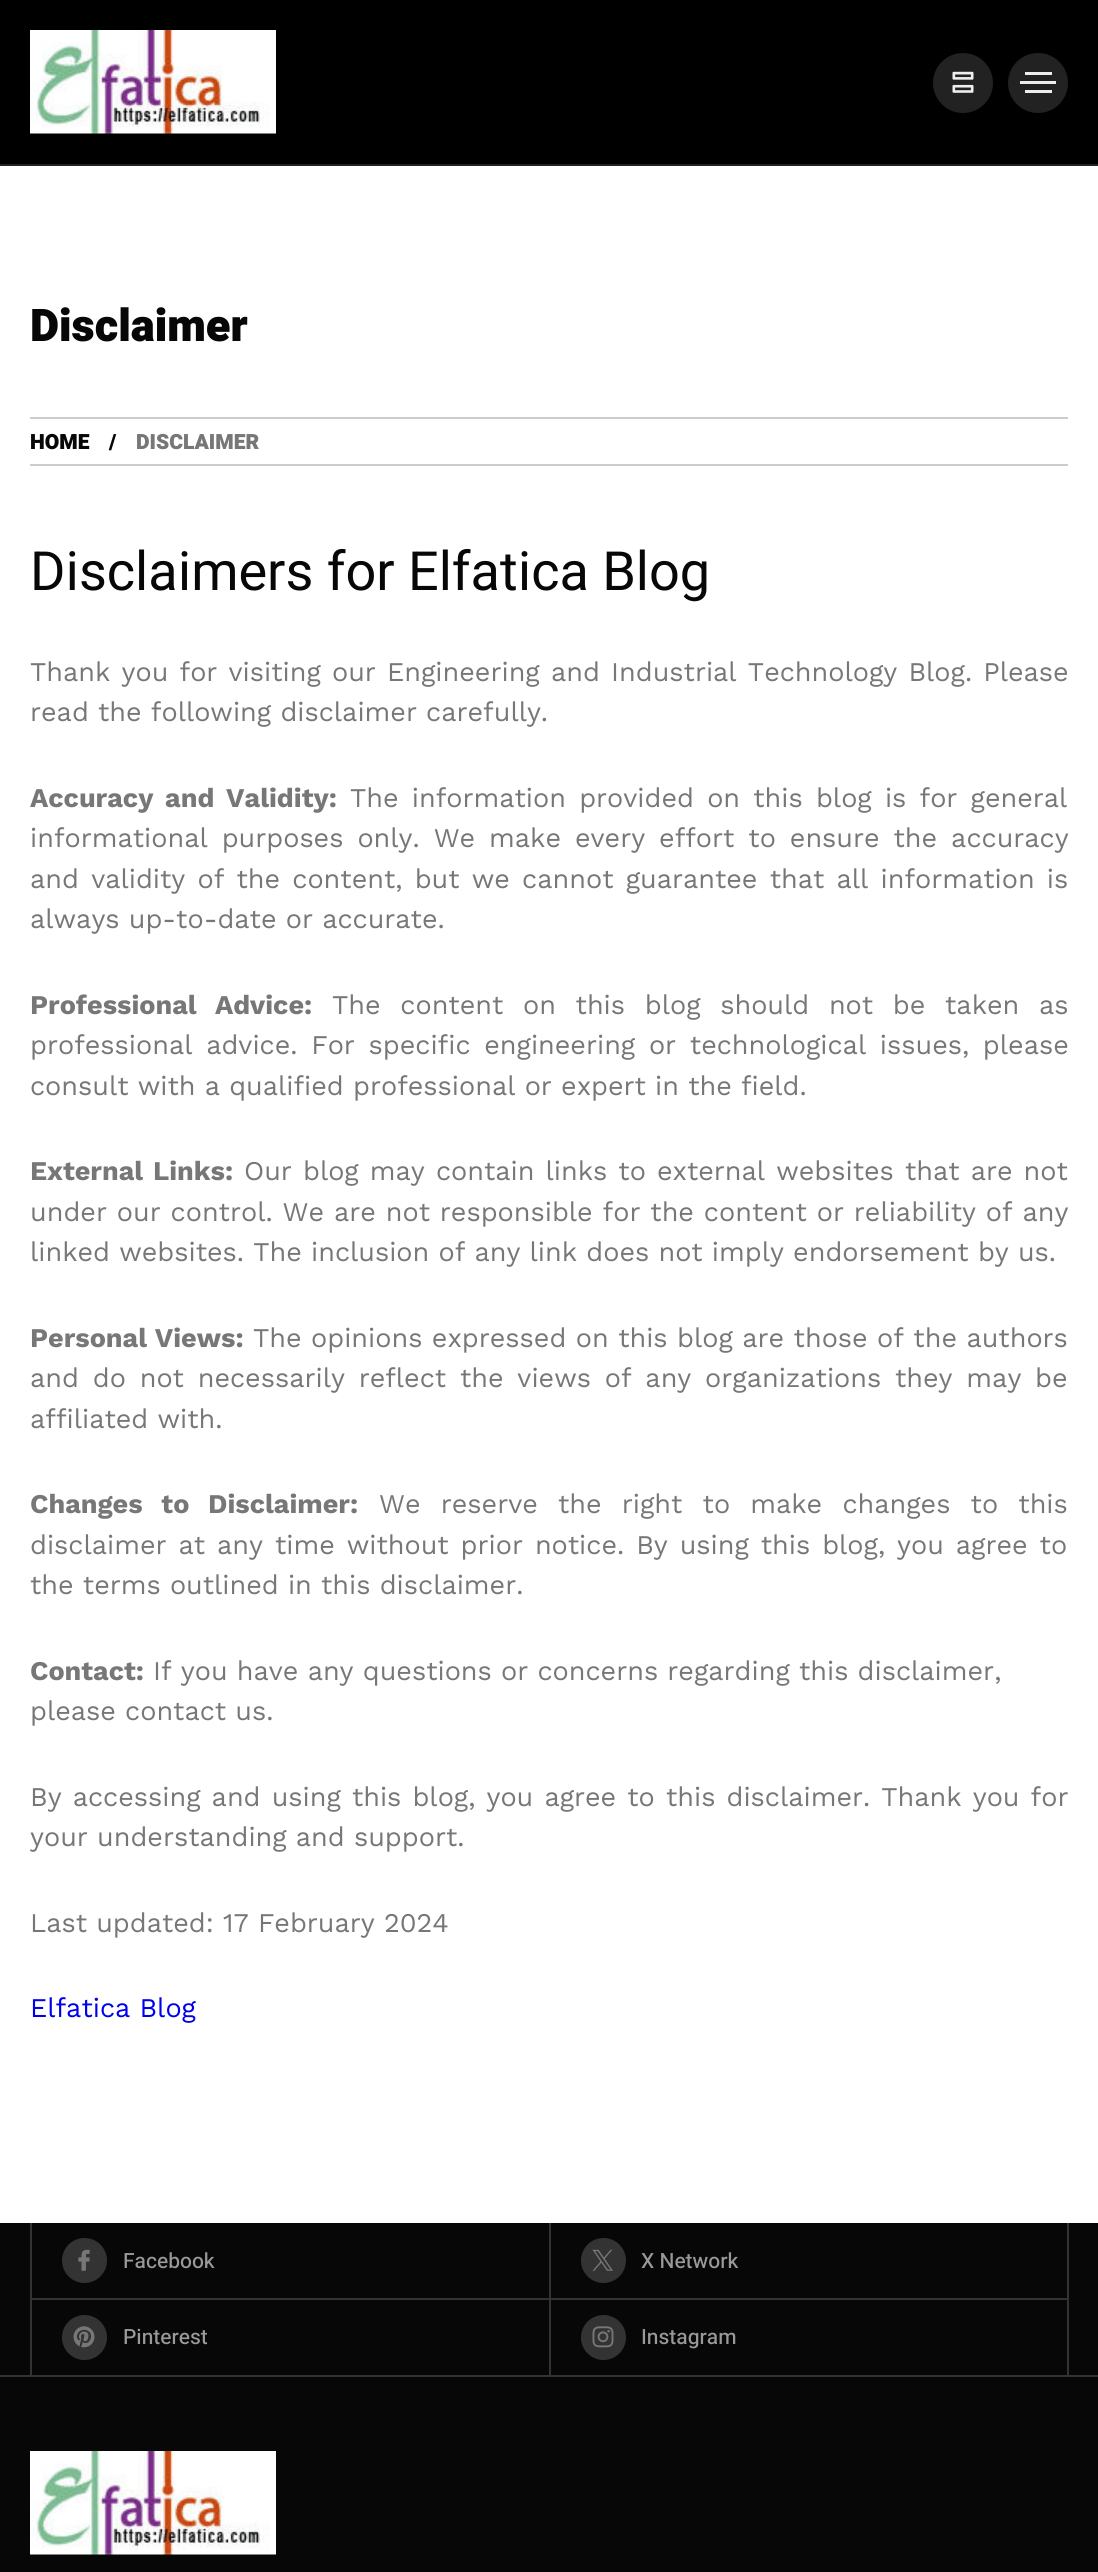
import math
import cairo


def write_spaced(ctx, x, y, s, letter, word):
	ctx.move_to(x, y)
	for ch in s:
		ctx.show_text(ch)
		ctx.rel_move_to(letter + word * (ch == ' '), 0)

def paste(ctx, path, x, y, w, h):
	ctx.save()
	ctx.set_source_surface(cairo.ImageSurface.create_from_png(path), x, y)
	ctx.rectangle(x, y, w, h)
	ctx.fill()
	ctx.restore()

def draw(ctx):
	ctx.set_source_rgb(1, 1, 1)
	ctx.paint()
	ctx.set_source_rgb(0, 0, 0)
	ctx.rectangle(0, 0, 1098, 164)
	ctx.fill()
	ctx.set_source_rgb(0.133, 0.133, 0.133)
	ctx.rectangle(0, 164, 1098, 2)
	ctx.fill()
	paste(ctx, 'media/1.png', 30, 30, 246, 104)
	ctx.arc(963, 83, 30, 0, 2 * math.pi)
	ctx.fill()
	paste(ctx, 'media/2.png', 952, 71, 22, 22)
	ctx.arc(1038, 83, 30, 0, 2 * math.pi)
	ctx.fill()
	ctx.set_source_rgb(0.933, 0.933, 0.933)
	ctx.rectangle(1020, 81, 36, 3)
	ctx.rectangle(1025, 72, 27, 3)
	ctx.rectangle(1025, 90, 27, 3)
	ctx.fill()
	ctx.select_font_face('Heebo Black')
	ctx.set_font_size(45)
	ctx.set_source_rgb(0.031, 0.031, 0.031)
	ctx.move_to(30, 341)
	ctx.show_text('Disclaimer')
	ctx.set_source_rgb(0.8, 0.8, 0.8)
	ctx.rectangle(30, 417, 1038, 2)
	ctx.fill()
	ctx.rectangle(30, 464, 1038, 2)
	ctx.fill()
	ctx.set_font_size(21)
	ctx.set_source_rgb(0.031, 0.031, 0.031)
	ctx.move_to(30, 449)
	ctx.show_text('HOME')
	ctx.move_to(109, 449)
	ctx.show_text('/')
	ctx.set_source_rgb(0.467, 0.467, 0.467)
	ctx.move_to(136, 449)
	ctx.show_text('DISCLAIMER')
	ctx.select_font_face('Heebo')
	ctx.set_font_size(54)
	ctx.set_source_rgb(0.031, 0.031, 0.031)
	ctx.move_to(30, 590)
	ctx.show_text('Disclaimers for Elfatica Blog')
	ctx.select_font_face('Work Sans')
	ctx.set_font_size(27)
	ctx.set_source_rgb(0.467, 0.467, 0.467)
	write_spaced(ctx, 30, 681, 'Thank you for visiting our Engineering and Industrial Technology Blog. Please', 0, 2)
	ctx.move_to(30, 721)
	ctx.show_text('read the following disclaimer carefully.')
	ctx.select_font_face('Work Sans', cairo.FONT_SLANT_NORMAL, cairo.FONT_WEIGHT_BOLD)
	write_spaced(ctx, 30, 807, 'Accuracy and Validity:', 0, 4)
	ctx.select_font_face('Work Sans')
	write_spaced(ctx, 350, 807, 'The information provided on this blog is for general', 0, 4)
	write_spaced(ctx, 30, 847, 'informational purposes only. We make every effort to ensure the accuracy', 0, 4.75)
	write_spaced(ctx, 30, 888, 'and validity of the content, but we cannot guarantee that all information is', 0, 3)
	ctx.move_to(30, 928)
	ctx.show_text('always up-to-date or accurate.')
	ctx.select_font_face('Work Sans', cairo.FONT_SLANT_NORMAL, cairo.FONT_WEIGHT_BOLD)
	write_spaced(ctx, 30, 1014, 'Professional Advice:', 0, 10.5)
	ctx.select_font_face('Work Sans')
	write_spaced(ctx, 332, 1014, 'The content on this blog should not be taken as', 0, 10.5)
	write_spaced(ctx, 30, 1054, 'professional advice. For specific engineering or technological issues, please', 0, 4.5)
	ctx.move_to(30, 1095)
	ctx.show_text('consult with a qualified professional or expert in the field.')
	ctx.select_font_face('Work Sans', cairo.FONT_SLANT_NORMAL, cairo.FONT_WEIGHT_BOLD)
	write_spaced(ctx, 30, 1180, 'External Links:', 0, 2)
	ctx.select_font_face('Work Sans')
	write_spaced(ctx, 244, 1180, 'Our blog may contain links to external websites that are not', 0, 1.9)
	write_spaced(ctx, 30, 1221, 'under our control. We are not responsible for the content or reliability of any', 0, 0.7)
	ctx.move_to(30, 1261)
	ctx.show_text('linked websites. The inclusion of any link does not imply endorsement by us.')
	ctx.select_font_face('Work Sans', cairo.FONT_SLANT_NORMAL, cairo.FONT_WEIGHT_BOLD)
	ctx.move_to(30, 1347)
	ctx.show_text('Personal Views:')
	ctx.select_font_face('Work Sans')
	write_spaced(ctx, 253, 1347, 'The opinions expressed on this blog are those of the authors', 0, 0.25)
	write_spaced(ctx, 30, 1387, 'and do not necessarily reflect the views of any organizations they may be', 0, 4.6)
	ctx.move_to(30, 1428)
	ctx.show_text('affiliated with.')
	ctx.select_font_face('Work Sans', cairo.FONT_SLANT_NORMAL, cairo.FONT_WEIGHT_BOLD)
	write_spaced(ctx, 30, 1513, 'Changes to Disclaimer:', 0, 11)
	ctx.select_font_face('Work Sans')
	write_spaced(ctx, 379, 1513, 'We reserve the right to make changes to this', 0, 11)
	write_spaced(ctx, 30, 1554, 'disclaimer at any time without prior notice. By using this blog, you agree to', 0, 2.75)
	ctx.move_to(30, 1594)
	ctx.show_text('the terms outlined in this disclaimer.')
	ctx.select_font_face('Work Sans', cairo.FONT_SLANT_NORMAL, cairo.FONT_WEIGHT_BOLD)
	ctx.move_to(30, 1680)
	ctx.show_text('Contact:')
	ctx.select_font_face('Work Sans')
	ctx.move_to(153, 1680)
	ctx.show_text('If you have any questions or concerns regarding this disclaimer,')
	ctx.move_to(30, 1720)
	ctx.show_text('please contact us.')
	write_spaced(ctx, 30, 1806, 'By accessing and using this blog, you agree to this disclaimer. Thank you for', 0, 1.9)
	ctx.move_to(30, 1846)
	ctx.show_text('your understanding and support.')
	ctx.move_to(30, 1932)
	ctx.show_text('Last updated: 17 February 2024')
	ctx.set_source_rgb(0, 0, 0.933)
	ctx.move_to(30, 2017)
	ctx.show_text('Elfatica Blog')
	ctx.set_source_rgb(0.031, 0.031, 0.031)
	ctx.rectangle(0, 2223, 1098, 349)
	ctx.fill()
	ctx.set_source_rgb(0.2, 0.2, 0.2)
	ctx.rectangle(0, 2375, 1098, 2)
	ctx.rectangle(30, 2223, 2, 153)
	ctx.rectangle(549, 2223, 2, 153)
	ctx.rectangle(32, 2298, 519, 2)
	ctx.fill()
	ctx.arc(84.5, 2260.5, 22.5, 0, 2 * math.pi)
	ctx.fill()
	paste(ctx, 'media/3.png', 78, 2249, 12, 22)
	ctx.select_font_face('Heebo Medium')
	ctx.set_font_size(21)
	ctx.set_source_rgb(0.6, 0.6, 0.6)
	ctx.move_to(123, 2268)
	ctx.show_text('Facebook')
	ctx.set_source_rgb(0.2, 0.2, 0.2)
	ctx.rectangle(1067, 2223, 2, 153)
	ctx.fill()
	ctx.rectangle(551, 2298, 517, 2)
	ctx.fill()
	ctx.arc(603.5, 2260.5, 22.5, 0, 2 * math.pi)
	ctx.fill()
	paste(ctx, 'media/4.png', 592, 2249, 21, 22)
	ctx.set_source_rgb(0.6, 0.6, 0.6)
	ctx.move_to(641, 2268)
	ctx.show_text('X Network')
	ctx.set_source_rgb(0.2, 0.2, 0.2)
	ctx.new_path()
	ctx.arc(84.5, 2337.5, 22.5, 0, 2 * math.pi)
	ctx.fill()
	paste(ctx, 'media/5.png', 73, 2326, 22, 22)
	ctx.set_source_rgb(0.6, 0.6, 0.6)
	ctx.move_to(123, 2344)
	ctx.show_text('Pinterest')
	ctx.set_source_rgb(0.2, 0.2, 0.2)
	ctx.new_path()
	ctx.arc(603.5, 2337.5, 22.5, 0, 2 * math.pi)
	ctx.fill()
	paste(ctx, 'media/6.png', 592, 2326, 22, 22)
	ctx.set_source_rgb(0.6, 0.6, 0.6)
	ctx.move_to(641, 2344)
	ctx.show_text('Instagram')
	paste(ctx, 'media/7.png', 30, 2451, 246, 104)


surface = cairo.ImageSurface(cairo.FORMAT_RGB24, 1098, 2572)
ctx = cairo.Context(surface)
options = cairo.FontOptions()
options.set_hint_metrics(cairo.HINT_METRICS_OFF)
options.set_hint_style(cairo.HINT_STYLE_NONE)
ctx.set_font_options(options)
ctx.set_miter_limit(4)
draw(ctx)
surface.write_to_png('image.png')
